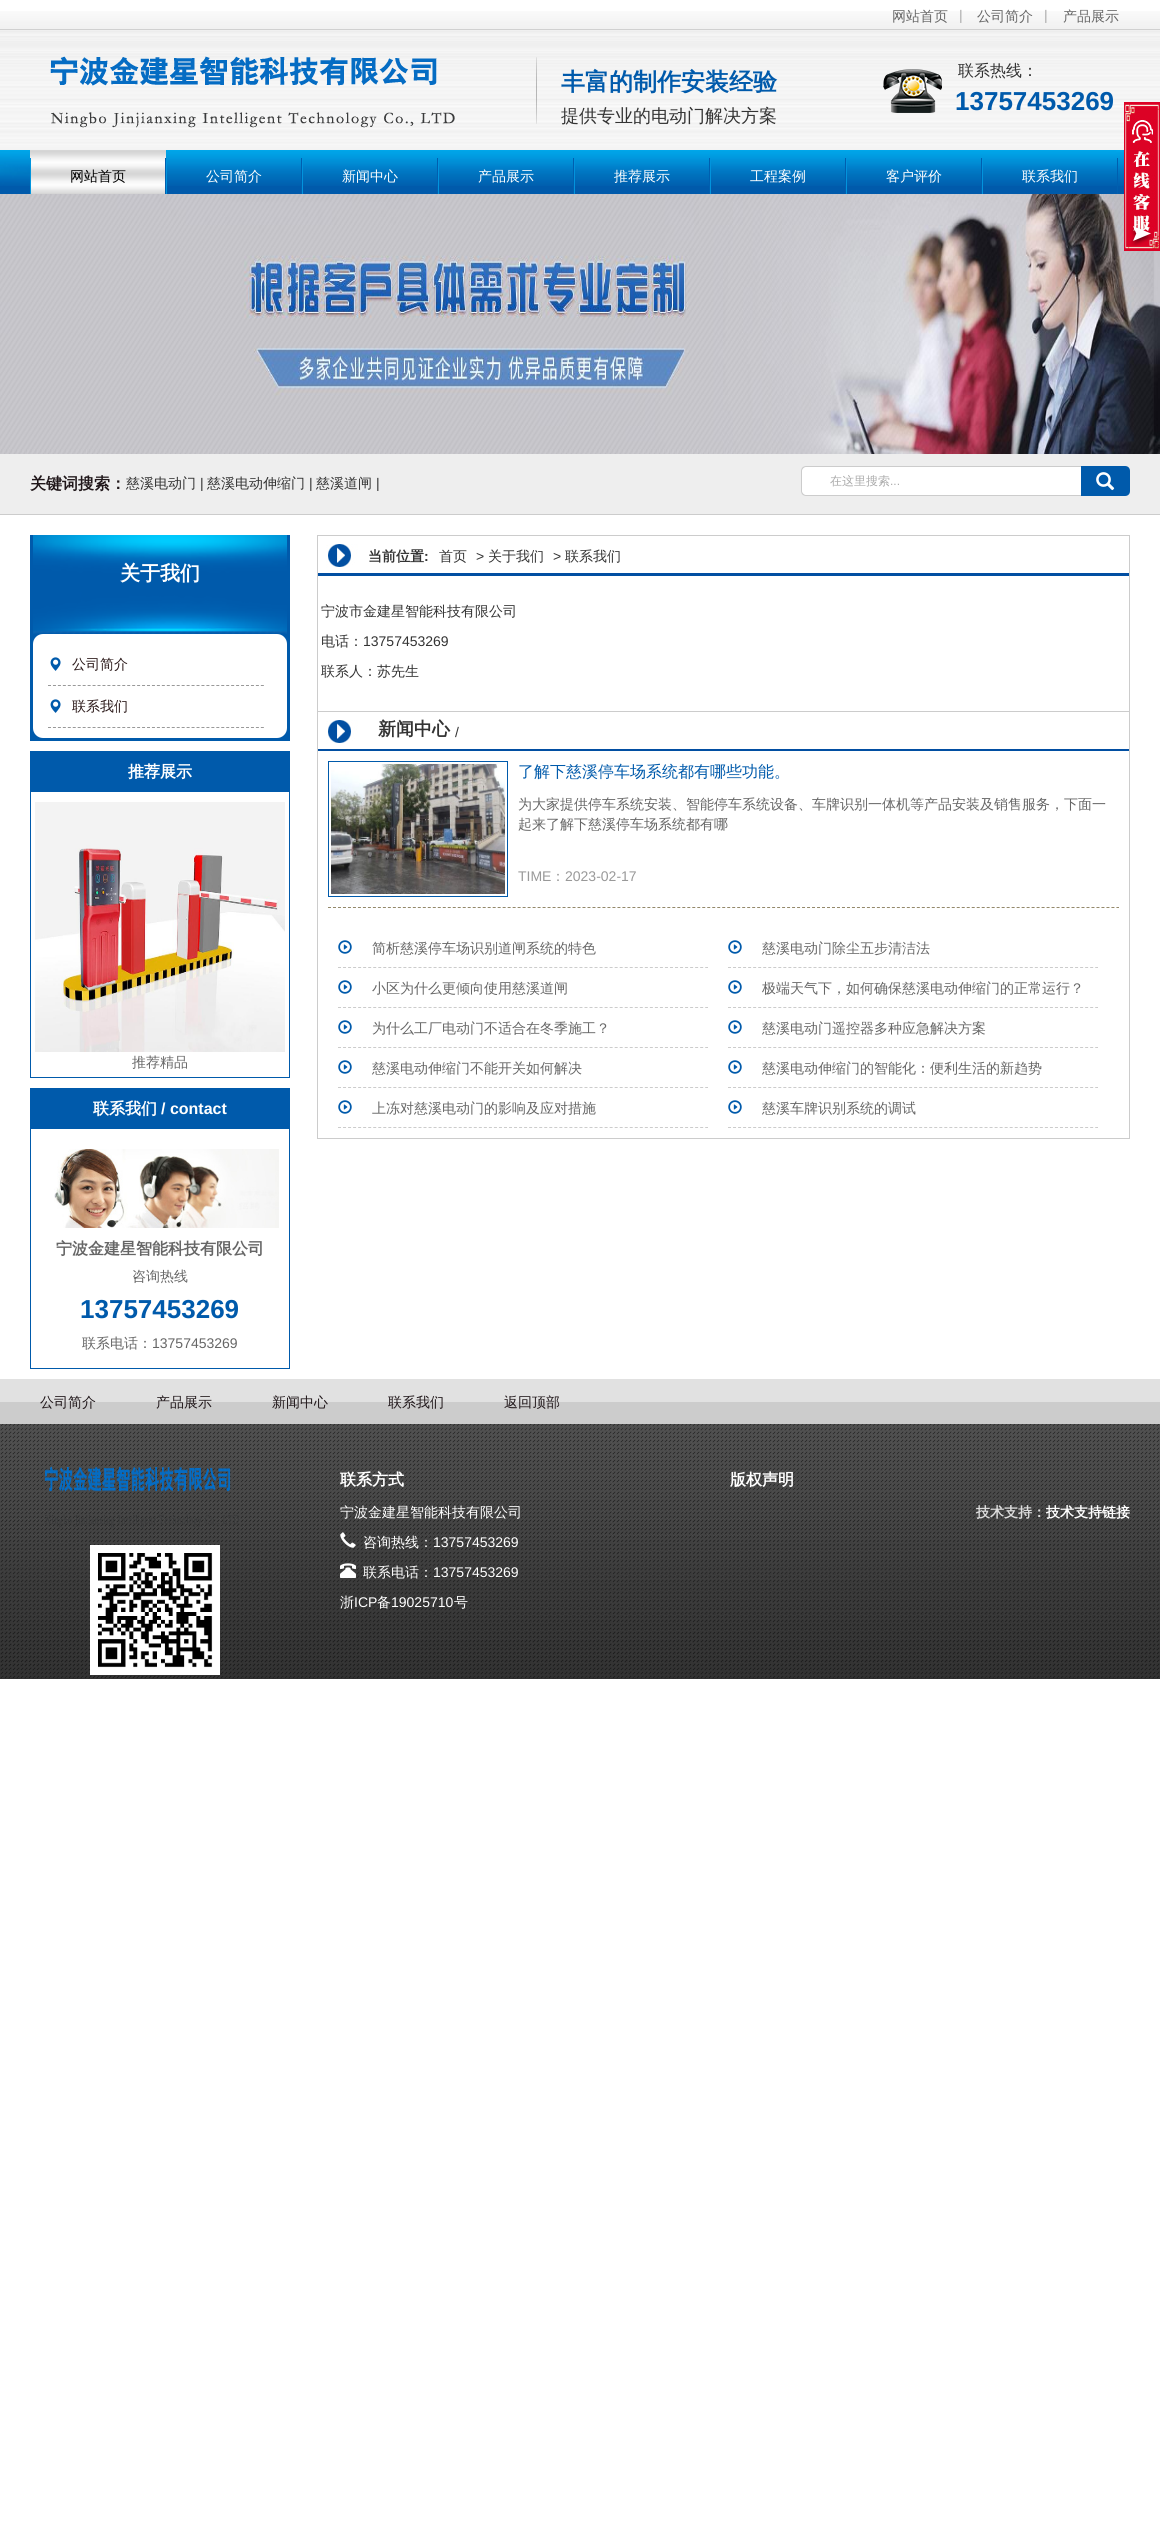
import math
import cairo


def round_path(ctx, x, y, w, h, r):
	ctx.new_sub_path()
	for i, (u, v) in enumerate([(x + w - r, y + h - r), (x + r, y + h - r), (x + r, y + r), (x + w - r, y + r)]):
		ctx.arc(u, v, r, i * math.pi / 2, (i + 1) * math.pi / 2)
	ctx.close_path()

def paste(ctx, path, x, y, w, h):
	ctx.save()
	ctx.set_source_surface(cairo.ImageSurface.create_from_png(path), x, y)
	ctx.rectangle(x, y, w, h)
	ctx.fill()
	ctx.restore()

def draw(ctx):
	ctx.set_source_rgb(1, 1, 1)
	ctx.paint()
	paste(ctx, 'media/1.png', 0, 11, 1160, 18)
	ctx.set_source_rgb(0.816, 0.816, 0.816)
	ctx.rectangle(0, 29, 1160, 1)
	ctx.fill()
	ctx.select_font_face('WenQuanYi Zen Hei Medium')
	ctx.set_font_size(14)
	ctx.set_source_rgb(0.4, 0.4, 0.4)
	ctx.move_to(892, 21)
	ctx.show_text('网站首页')
	ctx.select_font_face('Liberation Sans')
	ctx.set_source_rgb(0.667, 0.667, 0.667)
	ctx.move_to(959, 20)
	ctx.show_text('|')
	ctx.select_font_face('WenQuanYi Zen Hei Medium')
	ctx.set_source_rgb(0.4, 0.4, 0.4)
	ctx.move_to(977, 21)
	ctx.show_text('公司简介')
	ctx.select_font_face('Liberation Sans')
	ctx.set_source_rgb(0.667, 0.667, 0.667)
	ctx.move_to(1044, 20)
	ctx.show_text('|')
	ctx.select_font_face('WenQuanYi Zen Hei Medium')
	ctx.set_source_rgb(0.4, 0.4, 0.4)
	ctx.move_to(1063, 21)
	ctx.show_text('产品展示')
	paste(ctx, 'media/2.png', 0, 30, 1160, 120)
	paste(ctx, 'media/3.png', 50, 56, 405, 72)
	paste(ctx, 'media/4.png', 536, 57, 1, 67)
	ctx.select_font_face('WenQuanYi Zen Hei', cairo.FONT_SLANT_NORMAL, cairo.FONT_WEIGHT_BOLD)
	ctx.set_font_size(24)
	ctx.set_source_rgb(0, 0.353, 0.671)
	ctx.move_to(561, 90)
	ctx.show_text('丰富的制作安装经验')
	ctx.select_font_face('WenQuanYi Zen Hei Medium')
	ctx.set_font_size(18)
	ctx.set_source_rgb(0.2, 0.2, 0.2)
	ctx.move_to(561, 122)
	ctx.show_text('提供专业的电动门解决方案')
	paste(ctx, 'media/5.png', 883, 69, 59, 44)
	ctx.set_font_size(16)
	ctx.move_to(958, 76)
	ctx.show_text('联系热线：')
	ctx.select_font_face('Liberation Sans', cairo.FONT_SLANT_NORMAL, cairo.FONT_WEIGHT_BOLD)
	ctx.set_font_size(26)
	ctx.set_source_rgb(0, 0.353, 0.671)
	ctx.move_to(955, 110)
	ctx.show_text('13757453269')
	ctx.rectangle(0, 186, 1124, 8)
	ctx.fill()
	paste(ctx, 'media/6.png', 0, 150, 1124, 36)
	paste(ctx, 'media/7.png', 30, 150, 136, 44)
	ctx.set_source_rgb(0, 0.373, 0.686)
	ctx.rectangle(165, 158, 1, 36)
	ctx.fill()
	ctx.set_source_rgb(0.008, 0.58, 0.867)
	ctx.rectangle(30, 158, 1, 36)
	ctx.fill()
	ctx.select_font_face('WenQuanYi Zen Hei Medium')
	ctx.set_font_size(14)
	ctx.set_source_rgb(0, 0, 0)
	ctx.move_to(70, 181)
	ctx.show_text('网站首页')
	ctx.set_source_rgb(0, 0.373, 0.686)
	ctx.rectangle(301, 158, 1, 36)
	ctx.fill()
	ctx.set_source_rgb(0.008, 0.58, 0.867)
	ctx.rectangle(166, 158, 1, 36)
	ctx.fill()
	ctx.set_source_rgb(1, 1, 1)
	ctx.move_to(206, 181)
	ctx.show_text('公司简介')
	ctx.set_source_rgb(0, 0.373, 0.686)
	ctx.rectangle(437, 158, 1, 36)
	ctx.fill()
	ctx.set_source_rgb(0.008, 0.58, 0.867)
	ctx.rectangle(302, 158, 1, 36)
	ctx.fill()
	ctx.set_source_rgb(1, 1, 1)
	ctx.move_to(342, 181)
	ctx.show_text('新闻中心')
	ctx.set_source_rgb(0, 0.373, 0.686)
	ctx.rectangle(573, 158, 1, 36)
	ctx.fill()
	ctx.set_source_rgb(0.008, 0.58, 0.867)
	ctx.rectangle(438, 158, 1, 36)
	ctx.fill()
	ctx.set_source_rgb(1, 1, 1)
	ctx.move_to(478, 181)
	ctx.show_text('产品展示')
	ctx.set_source_rgb(0, 0.373, 0.686)
	ctx.rectangle(709, 158, 1, 36)
	ctx.fill()
	ctx.set_source_rgb(0.008, 0.58, 0.867)
	ctx.rectangle(574, 158, 1, 36)
	ctx.fill()
	ctx.set_source_rgb(1, 1, 1)
	ctx.move_to(614, 181)
	ctx.show_text('推荐展示')
	ctx.set_source_rgb(0, 0.373, 0.686)
	ctx.rectangle(845, 158, 1, 36)
	ctx.fill()
	ctx.set_source_rgb(0.008, 0.58, 0.867)
	ctx.rectangle(710, 158, 1, 36)
	ctx.fill()
	ctx.set_source_rgb(1, 1, 1)
	ctx.move_to(750, 181)
	ctx.show_text('工程案例')
	ctx.set_source_rgb(0, 0.373, 0.686)
	ctx.rectangle(981, 158, 1, 36)
	ctx.fill()
	ctx.set_source_rgb(0.008, 0.58, 0.867)
	ctx.rectangle(846, 158, 1, 36)
	ctx.fill()
	ctx.set_source_rgb(1, 1, 1)
	ctx.move_to(886, 181)
	ctx.show_text('客户评价')
	ctx.set_source_rgb(0, 0.373, 0.686)
	ctx.rectangle(1117, 158, 1, 36)
	ctx.fill()
	ctx.set_source_rgb(0.008, 0.58, 0.867)
	ctx.rectangle(982, 158, 1, 36)
	ctx.fill()
	ctx.set_source_rgb(1, 1, 1)
	ctx.move_to(1022, 181)
	ctx.show_text('联系我们')
	paste(ctx, 'media/10.png', 0, 194, 1160, 260)
	paste(ctx, 'media/8.png', 1124, 102, 36, 149)
	paste(ctx, 'media/9.png', 1131, 226, 21, 20)
	ctx.set_source_rgb(0.933, 0.933, 0.933)
	ctx.rectangle(0, 454, 1160, 60)
	ctx.fill()
	ctx.set_source_rgb(0.8, 0.8, 0.8)
	ctx.rectangle(0, 514, 1160, 1)
	ctx.fill()
	ctx.select_font_face('WenQuanYi Zen Hei', cairo.FONT_SLANT_NORMAL, cairo.FONT_WEIGHT_BOLD)
	ctx.set_font_size(16)
	ctx.set_source_rgb(0.125, 0.09, 0.102)
	ctx.move_to(30, 489)
	ctx.show_text('关键词搜索：')
	ctx.select_font_face('WenQuanYi Zen Hei Medium')
	ctx.set_font_size(14)
	ctx.set_source_rgb(0.2, 0.2, 0.2)
	ctx.move_to(126, 488)
	ctx.show_text('慈溪电动门')
	ctx.select_font_face('Liberation Sans')
	ctx.move_to(200, 488)
	ctx.show_text('|')
	ctx.select_font_face('WenQuanYi Zen Hei Medium')
	ctx.move_to(207, 488)
	ctx.show_text('慈溪电动伸缩门')
	ctx.select_font_face('Liberation Sans')
	ctx.move_to(309, 488)
	ctx.show_text('|')
	ctx.select_font_face('WenQuanYi Zen Hei Medium')
	ctx.move_to(316, 488)
	ctx.show_text('慈溪道闸')
	ctx.select_font_face('Liberation Sans')
	ctx.move_to(376, 488)
	ctx.show_text('|')
	ctx.set_source_rgb(1, 1, 1)
	ctx.new_path()
	ctx.move_to(806, 466)
	ctx.line_to(1081, 466)
	ctx.line_to(1081, 496)
	ctx.line_to(806, 496)
	ctx.curve_to(803, 496, 801, 494, 801, 491)
	ctx.line_to(801, 471)
	ctx.curve_to(801, 468, 803, 466, 806, 466)
	ctx.close_path()
	ctx.fill()
	ctx.set_source_rgb(0.8, 0.8, 0.8)
	ctx.set_fill_rule(cairo.FILL_RULE_EVEN_ODD)
	ctx.new_path()
	ctx.move_to(806, 466)
	ctx.line_to(1081, 466)
	ctx.line_to(1081, 496)
	ctx.line_to(806, 496)
	ctx.curve_to(803, 496, 801, 494, 801, 491)
	ctx.line_to(801, 471)
	ctx.curve_to(801, 468, 803, 466, 806, 466)
	ctx.close_path()
	ctx.move_to(806, 467)
	ctx.line_to(1081, 467)
	ctx.line_to(1081, 495)
	ctx.line_to(806, 495)
	ctx.curve_to(804, 495, 802, 493, 802, 491)
	ctx.line_to(802, 471)
	ctx.curve_to(802, 469, 804, 467, 806, 467)
	ctx.close_path()
	ctx.fill()
	ctx.select_font_face('WenQuanYi Zen Hei Medium')
	ctx.set_font_size(12)
	ctx.set_source_rgb(0.667, 0.667, 0.667)
	ctx.move_to(830, 485)
	ctx.show_text('在这里搜索')
	ctx.select_font_face('Liberation Sans')
	ctx.move_to(890, 485)
	ctx.show_text('...')
	ctx.set_source_rgb(0, 0.353, 0.671)
	ctx.new_path()
	ctx.move_to(1081, 466)
	ctx.line_to(1125, 466)
	ctx.curve_to(1128, 466, 1130, 468, 1130, 471)
	ctx.line_to(1130, 491)
	ctx.curve_to(1130, 494, 1128, 496, 1125, 496)
	ctx.line_to(1081, 496)
	ctx.close_path()
	ctx.fill()
	paste(ctx, 'media/11.png', 1096, 472, 19, 19)
	ctx.rectangle(30, 535, 260, 206)
	ctx.fill()
	paste(ctx, 'media/12.png', 33, 535, 254, 99)
	ctx.select_font_face('WenQuanYi Zen Hei', cairo.FONT_SLANT_NORMAL, cairo.FONT_WEIGHT_BOLD)
	ctx.set_font_size(20)
	ctx.set_source_rgb(1, 1, 1)
	ctx.move_to(120, 580)
	ctx.show_text('关于我们')
	round_path(ctx, 33, 634, 254, 104, 10)
	ctx.fill()
	ctx.new_path()
	ctx.move_to(48, 685.5)
	ctx.line_to(264, 685.5)
	ctx.set_source_rgb(0.6, 0.6, 0.6)
	ctx.set_line_width(1)
	ctx.set_dash([3, 1.95])
	ctx.stroke()
	paste(ctx, 'media/13.png', 50, 657, 11, 14)
	ctx.select_font_face('WenQuanYi Zen Hei Medium')
	ctx.set_font_size(14)
	ctx.set_source_rgb(0.165, 0.094, 0.094)
	ctx.move_to(72, 669)
	ctx.show_text('公司简介')
	ctx.new_path()
	ctx.move_to(48, 727.5)
	ctx.line_to(264, 727.5)
	ctx.set_source_rgb(0.6, 0.6, 0.6)
	ctx.stroke()
	paste(ctx, 'media/13.png', 50, 699, 11, 14)
	ctx.set_source_rgb(0.165, 0.094, 0.094)
	ctx.move_to(72, 711)
	ctx.show_text('联系我们')
	ctx.rectangle(30.5, 751.5, 259, 326)
	ctx.set_source_rgb(0, 0.353, 0.671)
	ctx.set_dash([])
	ctx.stroke()
	ctx.rectangle(31, 752, 258, 40)
	ctx.fill()
	ctx.select_font_face('WenQuanYi Zen Hei', cairo.FONT_SLANT_NORMAL, cairo.FONT_WEIGHT_BOLD)
	ctx.set_font_size(16)
	ctx.set_source_rgb(1, 1, 1)
	ctx.move_to(128, 777)
	ctx.show_text('推荐展示')
	paste(ctx, 'media/14.png', 35, 802, 250, 250)
	ctx.select_font_face('WenQuanYi Zen Hei Medium')
	ctx.set_font_size(14)
	ctx.set_source_rgb(0.4, 0.4, 0.4)
	ctx.move_to(132, 1067)
	ctx.show_text('推荐精品')
	ctx.rectangle(30.5, 1088.5, 259, 280)
	ctx.set_source_rgb(0, 0.353, 0.671)
	ctx.stroke()
	ctx.rectangle(31, 1089, 258, 40)
	ctx.fill()
	ctx.select_font_face('WenQuanYi Zen Hei', cairo.FONT_SLANT_NORMAL, cairo.FONT_WEIGHT_BOLD)
	ctx.set_font_size(16)
	ctx.set_source_rgb(1, 1, 1)
	ctx.move_to(93, 1114)
	ctx.show_text('联系我们')
	ctx.select_font_face('Liberation Sans', cairo.FONT_SLANT_NORMAL, cairo.FONT_WEIGHT_BOLD)
	ctx.move_to(161, 1114)
	ctx.show_text('/ contact')
	paste(ctx, 'media/15.png', 54, 1149, 225, 79)
	ctx.select_font_face('WenQuanYi Zen Hei', cairo.FONT_SLANT_NORMAL, cairo.FONT_WEIGHT_BOLD)
	ctx.set_source_rgb(0.4, 0.4, 0.4)
	ctx.move_to(56, 1254)
	ctx.show_text('宁波金建星智能科技有限公司')
	ctx.select_font_face('WenQuanYi Zen Hei Medium')
	ctx.set_font_size(14)
	ctx.move_to(132, 1281)
	ctx.show_text('咨询热线')
	ctx.select_font_face('Liberation Sans', cairo.FONT_SLANT_NORMAL, cairo.FONT_WEIGHT_BOLD)
	ctx.set_font_size(26)
	ctx.set_source_rgb(0, 0.353, 0.671)
	ctx.move_to(80, 1318)
	ctx.show_text('13757453269')
	ctx.select_font_face('WenQuanYi Zen Hei Medium')
	ctx.set_font_size(14)
	ctx.set_source_rgb(0.4, 0.4, 0.4)
	ctx.move_to(82, 1348)
	ctx.show_text('联系电话：')
	ctx.select_font_face('Liberation Sans')
	ctx.move_to(152, 1348)
	ctx.show_text('13757453269')
	ctx.rectangle(317.5, 535.5, 812, 603)
	ctx.set_source_rgb(0.8, 0.8, 0.8)
	ctx.stroke()
	paste(ctx, 'media/16.png', 318, 536, 811, 40)
	ctx.select_font_face('WenQuanYi Zen Hei', cairo.FONT_SLANT_NORMAL, cairo.FONT_WEIGHT_BOLD)
	ctx.set_source_rgb(0.2, 0.2, 0.2)
	ctx.move_to(368, 561)
	ctx.show_text('当前位置')
	ctx.select_font_face('Liberation Sans', cairo.FONT_SLANT_NORMAL, cairo.FONT_WEIGHT_BOLD)
	ctx.move_to(424, 561)
	ctx.show_text(':')
	ctx.select_font_face('WenQuanYi Zen Hei Medium')
	ctx.move_to(439, 561)
	ctx.show_text('首页')
	ctx.select_font_face('Liberation Sans')
	ctx.move_to(476, 561)
	ctx.show_text('>')
	ctx.select_font_face('WenQuanYi Zen Hei Medium')
	ctx.move_to(488, 561)
	ctx.show_text('关于我们')
	ctx.select_font_face('Liberation Sans')
	ctx.move_to(553, 561)
	ctx.show_text('>')
	ctx.select_font_face('WenQuanYi Zen Hei Medium')
	for x, y, s in [
		(565, 561, '联系我们'),
		(321, 616, '宁波市金建星智能科技有限公司'),
		(321, 646, '电话：'),
	]:
		ctx.move_to(x, y)
		ctx.show_text(s)
	ctx.select_font_face('Liberation Sans')
	ctx.move_to(363, 646)
	ctx.show_text('13757453269')
	ctx.select_font_face('WenQuanYi Zen Hei Medium')
	ctx.move_to(321, 676)
	ctx.show_text('联系人：苏先生')
	paste(ctx, 'media/17.png', 318, 712, 811, 39)
	ctx.set_source_rgb(0.8, 0.8, 0.8)
	ctx.rectangle(318, 711, 811, 1)
	ctx.fill()
	ctx.select_font_face('WenQuanYi Zen Hei', cairo.FONT_SLANT_NORMAL, cairo.FONT_WEIGHT_BOLD)
	ctx.set_font_size(18)
	ctx.set_source_rgb(0.2, 0.2, 0.2)
	ctx.move_to(378, 735)
	ctx.show_text('新闻中心')
	ctx.select_font_face('Liberation Sans')
	ctx.set_font_size(14)
	ctx.move_to(455, 737)
	ctx.show_text('/')
	ctx.new_path()
	ctx.move_to(328, 907.5)
	ctx.line_to(1119, 907.5)
	ctx.set_source_rgb(0.58, 0.537, 0.42)
	ctx.set_dash([3, 1.99])
	ctx.stroke()
	ctx.rectangle(328.5, 761.5, 179, 135)
	ctx.set_source_rgb(0, 0.353, 0.671)
	ctx.set_dash([])
	ctx.stroke()
	paste(ctx, 'media/18.png', 331, 764, 174, 130)
	ctx.select_font_face('WenQuanYi Zen Hei Medium')
	ctx.set_font_size(16)
	ctx.move_to(518, 777)
	ctx.show_text('了解下慈溪停车场系统都有哪些功能。')
	ctx.set_font_size(14)
	ctx.set_source_rgb(0.4, 0.4, 0.4)
	ctx.move_to(518, 809)
	ctx.show_text('为大家提供停车系统安装、智能停车系统设备、车牌识别一体机等产品安装及销售服务，下面一')
	ctx.move_to(518, 829)
	ctx.show_text('起来了解下慈溪停车场系统都有哪')
	ctx.select_font_face('Liberation Sans')
	ctx.set_source_rgb(0.6, 0.6, 0.6)
	ctx.move_to(518, 881)
	ctx.show_text('TIME')
	ctx.select_font_face('WenQuanYi Zen Hei Medium')
	ctx.move_to(551, 881)
	ctx.show_text('：')
	ctx.select_font_face('Liberation Sans')
	ctx.move_to(565, 881)
	ctx.show_text('2023-02-17')
	ctx.new_path()
	ctx.move_to(338, 967.5)
	ctx.line_to(708, 967.5)
	ctx.set_source_rgb(0.8, 0.8, 0.8)
	ctx.set_dash([3, 2.03])
	ctx.stroke()
	paste(ctx, 'media/19.png', 338, 940, 14, 14)
	ctx.select_font_face('WenQuanYi Zen Hei Medium')
	ctx.set_source_rgb(0.4, 0.4, 0.4)
	ctx.move_to(372, 953)
	ctx.show_text('简析慈溪停车场识别道闸系统的特色')
	ctx.new_path()
	ctx.move_to(728, 967.5)
	ctx.line_to(1098, 967.5)
	ctx.set_source_rgb(0.8, 0.8, 0.8)
	ctx.stroke()
	paste(ctx, 'media/19.png', 728, 940, 14, 14)
	ctx.set_source_rgb(0.4, 0.4, 0.4)
	ctx.move_to(762, 953)
	ctx.show_text('慈溪电动门除尘五步清洁法')
	ctx.new_path()
	ctx.move_to(338, 1007.5)
	ctx.line_to(708, 1007.5)
	ctx.set_source_rgb(0.8, 0.8, 0.8)
	ctx.stroke()
	paste(ctx, 'media/19.png', 338, 980, 14, 14)
	ctx.set_source_rgb(0.4, 0.4, 0.4)
	ctx.move_to(372, 993)
	ctx.show_text('小区为什么更倾向使用慈溪道闸')
	ctx.new_path()
	ctx.move_to(728, 1007.5)
	ctx.line_to(1098, 1007.5)
	ctx.set_source_rgb(0.8, 0.8, 0.8)
	ctx.stroke()
	paste(ctx, 'media/19.png', 728, 980, 14, 14)
	ctx.set_source_rgb(0.4, 0.4, 0.4)
	ctx.move_to(762, 993)
	ctx.show_text('极端天气下，如何确保慈溪电动伸缩门的正常运行？')
	ctx.new_path()
	ctx.move_to(338, 1047.5)
	ctx.line_to(708, 1047.5)
	ctx.set_source_rgb(0.8, 0.8, 0.8)
	ctx.stroke()
	paste(ctx, 'media/19.png', 338, 1020, 14, 14)
	ctx.set_source_rgb(0.4, 0.4, 0.4)
	ctx.move_to(372, 1033)
	ctx.show_text('为什么工厂电动门不适合在冬季施工？')
	ctx.new_path()
	ctx.move_to(728, 1047.5)
	ctx.line_to(1098, 1047.5)
	ctx.set_source_rgb(0.8, 0.8, 0.8)
	ctx.stroke()
	paste(ctx, 'media/19.png', 728, 1020, 14, 14)
	ctx.set_source_rgb(0.4, 0.4, 0.4)
	ctx.move_to(762, 1033)
	ctx.show_text('慈溪电动门遥控器多种应急解决方案')
	ctx.new_path()
	ctx.move_to(338, 1087.5)
	ctx.line_to(708, 1087.5)
	ctx.set_source_rgb(0.8, 0.8, 0.8)
	ctx.stroke()
	paste(ctx, 'media/19.png', 338, 1060, 14, 14)
	ctx.set_source_rgb(0.4, 0.4, 0.4)
	ctx.move_to(372, 1073)
	ctx.show_text('慈溪电动伸缩门不能开关如何解决')
	ctx.new_path()
	ctx.move_to(728, 1087.5)
	ctx.line_to(1098, 1087.5)
	ctx.set_source_rgb(0.8, 0.8, 0.8)
	ctx.stroke()
	paste(ctx, 'media/19.png', 728, 1060, 14, 14)
	ctx.set_source_rgb(0.4, 0.4, 0.4)
	ctx.move_to(762, 1073)
	ctx.show_text('慈溪电动伸缩门的智能化：便利生活的新趋势')
	ctx.new_path()
	ctx.move_to(338, 1127.5)
	ctx.line_to(708, 1127.5)
	ctx.set_source_rgb(0.8, 0.8, 0.8)
	ctx.stroke()
	paste(ctx, 'media/19.png', 338, 1100, 14, 14)
	ctx.set_source_rgb(0.4, 0.4, 0.4)
	ctx.move_to(372, 1113)
	ctx.show_text('上冻对慈溪电动门的影响及应对措施')
	ctx.new_path()
	ctx.move_to(728, 1127.5)
	ctx.line_to(1098, 1127.5)
	ctx.set_source_rgb(0.8, 0.8, 0.8)
	ctx.stroke()
	paste(ctx, 'media/19.png', 728, 1100, 14, 14)
	ctx.set_source_rgb(0.4, 0.4, 0.4)
	ctx.move_to(762, 1113)
	ctx.show_text('慈溪车牌识别系统的调试')
	paste(ctx, 'media/20.png', 0, 1424, 1160, 255)
	ctx.set_source_rgb(0.8, 0.8, 0.8)
	ctx.rectangle(0, 1402, 1160, 22)
	ctx.fill()
	ctx.set_source_rgb(0.882, 0.882, 0.882)
	ctx.rectangle(0, 1379, 1160, 23)
	ctx.fill()
	ctx.set_source_rgb(0.125, 0.09, 0.102)
	for x, y, s in [
		(40, 1407, '公司简介'),
		(156, 1407, '产品展示'),
		(272, 1407, '新闻中心'),
		(388, 1407, '联系我们'),
		(504, 1407, '返回顶部'),
	]:
		ctx.move_to(x, y)
		ctx.show_text(s)
	paste(ctx, 'media/21.png', 44, 1466, 195, 62)
	paste(ctx, 'media/22.png', 90, 1545, 130, 130)
	ctx.select_font_face('WenQuanYi Zen Hei', cairo.FONT_SLANT_NORMAL, cairo.FONT_WEIGHT_BOLD)
	ctx.set_font_size(16)
	ctx.set_source_rgb(1, 1, 1)
	ctx.move_to(340, 1485)
	ctx.show_text('联系方式')
	ctx.select_font_face('WenQuanYi Zen Hei Medium')
	ctx.set_font_size(14)
	ctx.move_to(340, 1517)
	ctx.show_text('宁波金建星智能科技有限公司')
	paste(ctx, 'media/23.png', 340, 1532, 16, 16)
	ctx.move_to(363, 1547)
	ctx.show_text('咨询热线：')
	ctx.select_font_face('Liberation Sans')
	ctx.move_to(433, 1547)
	ctx.show_text('13757453269')
	paste(ctx, 'media/24.png', 340, 1563, 16, 15)
	ctx.select_font_face('WenQuanYi Zen Hei Medium')
	ctx.move_to(363, 1577)
	ctx.show_text('联系电话：')
	ctx.select_font_face('Liberation Sans')
	ctx.move_to(433, 1577)
	ctx.show_text('13757453269')
	ctx.select_font_face('WenQuanYi Zen Hei Medium')
	ctx.move_to(340, 1607)
	ctx.show_text('浙')
	ctx.select_font_face('Liberation Sans')
	ctx.move_to(354, 1607)
	ctx.show_text('ICP')
	ctx.select_font_face('WenQuanYi Zen Hei Medium')
	ctx.move_to(377, 1607)
	ctx.show_text('备')
	ctx.select_font_face('Liberation Sans')
	ctx.move_to(391, 1607)
	ctx.show_text('19025710')
	ctx.select_font_face('WenQuanYi Zen Hei Medium')
	ctx.move_to(454, 1607)
	ctx.show_text('号')
	ctx.select_font_face('WenQuanYi Zen Hei', cairo.FONT_SLANT_NORMAL, cairo.FONT_WEIGHT_BOLD)
	ctx.set_font_size(16)
	ctx.move_to(730, 1485)
	ctx.show_text('版权声明')
	ctx.set_font_size(14)
	ctx.set_source_rgb(0.867, 0.867, 0.867)
	ctx.move_to(976, 1517)
	ctx.show_text('技术支持：')
	ctx.set_source_rgb(1, 1, 1)
	ctx.move_to(1046, 1517)
	ctx.show_text('技术支持链接')


surface = cairo.ImageSurface(cairo.FORMAT_RGB24, 1160, 2534)
ctx = cairo.Context(surface)
options = cairo.FontOptions()
options.set_hint_metrics(cairo.HINT_METRICS_OFF)
options.set_hint_style(cairo.HINT_STYLE_NONE)
ctx.set_font_options(options)
ctx.set_miter_limit(4)
draw(ctx)
surface.write_to_png('image.png')
